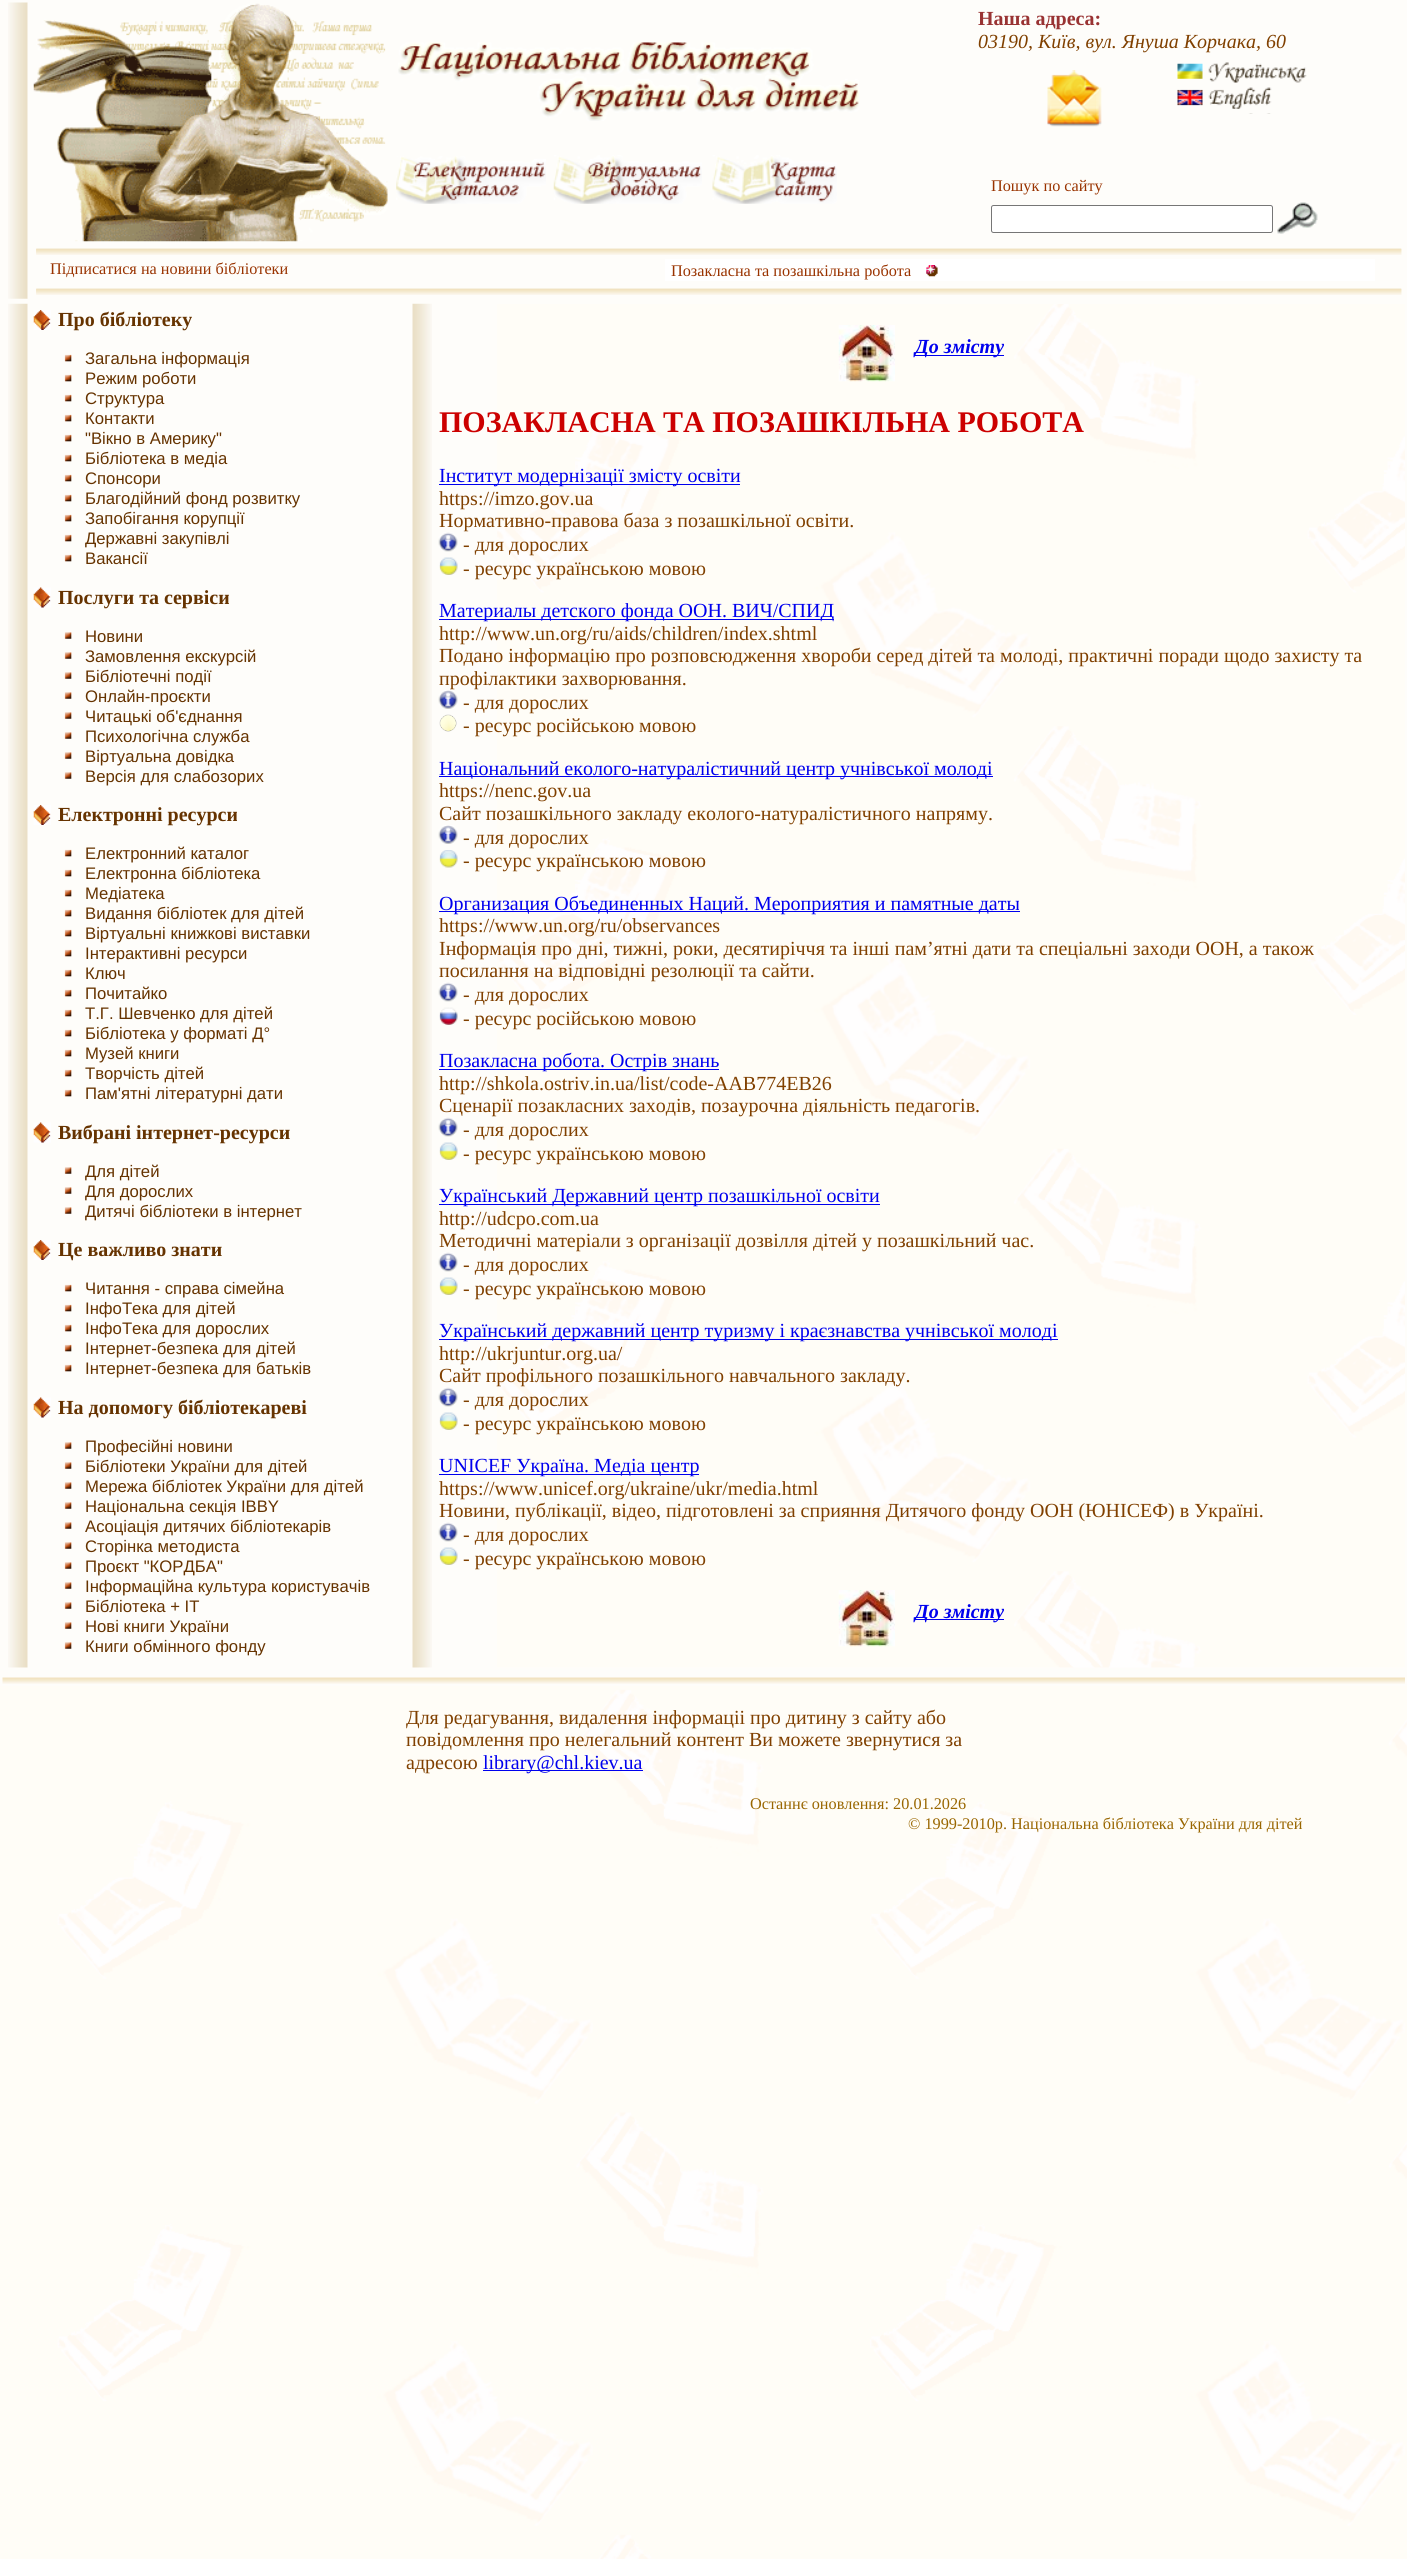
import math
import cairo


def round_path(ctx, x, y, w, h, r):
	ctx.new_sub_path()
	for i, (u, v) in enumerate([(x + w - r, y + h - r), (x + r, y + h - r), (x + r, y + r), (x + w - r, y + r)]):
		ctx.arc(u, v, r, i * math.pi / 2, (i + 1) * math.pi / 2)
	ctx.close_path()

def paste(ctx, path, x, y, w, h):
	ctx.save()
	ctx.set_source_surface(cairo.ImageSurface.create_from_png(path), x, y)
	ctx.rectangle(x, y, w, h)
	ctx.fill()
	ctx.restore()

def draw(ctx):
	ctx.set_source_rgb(1, 1, 1)
	ctx.paint()
	paste(ctx, 'media/1.png', 0, 1686, 1407, 873)
	ctx.set_source_rgb(0.996, 0.992, 0.98)
	ctx.rectangle(0, 0, 1407, 1686)
	ctx.fill()
	paste(ctx, 'media/2.png', 8, 2, 20, 297)
	paste(ctx, 'media/3.png', 33, 3, 355, 239)
	paste(ctx, 'media/4.png', 398, 42, 461, 79)
	paste(ctx, 'media/5.png', 396, 156, 150, 48)
	paste(ctx, 'media/6.png', 553, 155, 149, 49)
	paste(ctx, 'media/7.png', 712, 155, 125, 49)
	ctx.select_font_face('Liberation Serif', cairo.FONT_SLANT_NORMAL, cairo.FONT_WEIGHT_BOLD)
	ctx.set_font_size(20)
	ctx.set_source_rgb(0.6, 0.2, 0.2)
	ctx.move_to(978, 25)
	ctx.show_text('Наша адреса:')
	ctx.select_font_face('Liberation Serif', cairo.FONT_SLANT_ITALIC)
	ctx.set_source_rgb(0.502, 0.251, 0)
	ctx.move_to(978, 48)
	ctx.show_text('03190, Київ, вул. Януша Корчака, 60')
	paste(ctx, 'media/8.png', 1047, 70, 55, 57)
	paste(ctx, 'media/9.png', 1177, 62, 130, 21)
	paste(ctx, 'media/10.png', 1177, 87, 95, 22)
	paste(ctx, 'media/11.png', 1248, 113, 24, 1)
	ctx.select_font_face('Liberation Serif')
	ctx.set_font_size(16.25)
	ctx.set_source_rgb(0.6, 0.2, 0)
	ctx.move_to(991, 191)
	ctx.show_text('Пошук по сайту')
	ctx.set_source_rgb(1, 1, 1)
	round_path(ctx, 991.5, 205.5, 281, 27, 2)
	ctx.fill_preserve()
	ctx.set_source_rgb(0.463, 0.463, 0.463)
	ctx.set_line_width(1)
	ctx.stroke()
	paste(ctx, 'media/12.png', 1277, 202, 41, 32)
	paste(ctx, 'media/13.png', 36, 248, 1366, 7)
	ctx.set_source_rgb(0.6, 0.2, 0)
	ctx.move_to(50, 274)
	ctx.show_text('Підписатися на новини бібліотеки')
	ctx.set_source_rgb(1, 1, 1)
	ctx.rectangle(665, 259, 710, 22)
	ctx.fill()
	ctx.set_source_rgb(0.6, 0.2, 0)
	ctx.move_to(671, 276)
	ctx.show_text('Позакласна та позашкільна робота')
	paste(ctx, 'media/14.png', 926, 265, 12, 12)
	paste(ctx, 'media/15.png', 36, 288, 1366, 7)
	paste(ctx, 'media/16.png', 8, 303, 20, 1365)
	paste(ctx, 'media/17.png', 33, 310, 18, 20)
	ctx.select_font_face('Liberation Serif', cairo.FONT_SLANT_NORMAL, cairo.FONT_WEIGHT_BOLD)
	ctx.set_font_size(20)
	ctx.set_source_rgb(0.4, 0.2, 0)
	ctx.move_to(58, 326)
	ctx.show_text('Про бібліотеку')
	paste(ctx, 'media/18.png', 64, 354, 8, 8)
	ctx.select_font_face('Liberation Sans')
	ctx.set_font_size(16.7)
	ctx.move_to(85, 364)
	ctx.show_text('Загальна інформація')
	paste(ctx, 'media/18.png', 64, 374, 8, 8)
	ctx.move_to(85, 384)
	ctx.show_text('Режим роботи')
	paste(ctx, 'media/18.png', 64, 394, 8, 8)
	ctx.move_to(85, 404)
	ctx.show_text('Структура')
	paste(ctx, 'media/18.png', 64, 414, 8, 8)
	ctx.move_to(85, 424)
	ctx.show_text('Контакти')
	paste(ctx, 'media/18.png', 64, 434, 8, 8)
	ctx.move_to(85, 444)
	ctx.show_text('"Вікно в Америку"')
	paste(ctx, 'media/18.png', 64, 454, 8, 8)
	ctx.move_to(85, 464)
	ctx.show_text('Бібліотека в медіа')
	paste(ctx, 'media/18.png', 64, 474, 8, 8)
	ctx.move_to(85, 484)
	ctx.show_text('Спонсори')
	paste(ctx, 'media/18.png', 64, 494, 8, 8)
	ctx.move_to(85, 504)
	ctx.show_text('Благодійний фонд розвитку')
	paste(ctx, 'media/18.png', 64, 514, 8, 8)
	ctx.move_to(85, 524)
	ctx.show_text('Запобігання корупції')
	paste(ctx, 'media/18.png', 64, 534, 8, 8)
	ctx.move_to(85, 544)
	ctx.show_text('Державні закупівлі')
	paste(ctx, 'media/18.png', 64, 554, 8, 8)
	ctx.move_to(85, 564)
	ctx.show_text('Вакансії')
	paste(ctx, 'media/19.png', 33, 587, 18, 21)
	ctx.select_font_face('Liberation Serif', cairo.FONT_SLANT_NORMAL, cairo.FONT_WEIGHT_BOLD)
	ctx.set_font_size(20)
	ctx.move_to(58, 604)
	ctx.show_text('Послуги та сервіси')
	paste(ctx, 'media/20.png', 64, 632, 8, 7)
	ctx.select_font_face('Liberation Sans')
	ctx.set_font_size(16.7)
	ctx.move_to(85, 642)
	ctx.show_text('Новини')
	paste(ctx, 'media/20.png', 64, 652, 8, 7)
	ctx.move_to(85, 662)
	ctx.show_text('Замовлення екскурсій')
	paste(ctx, 'media/20.png', 64, 672, 8, 7)
	ctx.move_to(85, 682)
	ctx.show_text('Бібліотечні події')
	paste(ctx, 'media/20.png', 64, 692, 8, 7)
	ctx.move_to(85, 702)
	ctx.show_text('Онлайн-проєкти')
	paste(ctx, 'media/20.png', 64, 712, 8, 7)
	ctx.move_to(85, 722)
	ctx.show_text('Читацькі об\'єднання')
	paste(ctx, 'media/20.png', 64, 732, 8, 7)
	ctx.move_to(85, 742)
	ctx.show_text('Психологічна служба')
	paste(ctx, 'media/20.png', 64, 752, 8, 7)
	ctx.move_to(85, 762)
	ctx.show_text('Віртуальна довідка')
	paste(ctx, 'media/20.png', 64, 772, 8, 7)
	ctx.move_to(85, 782)
	ctx.show_text('Версія для слабозорих')
	paste(ctx, 'media/17.png', 33, 805, 18, 20)
	ctx.select_font_face('Liberation Serif', cairo.FONT_SLANT_NORMAL, cairo.FONT_WEIGHT_BOLD)
	ctx.set_font_size(20)
	ctx.move_to(58, 821)
	ctx.show_text('Електронні ресурси')
	paste(ctx, 'media/18.png', 64, 849, 8, 8)
	ctx.select_font_face('Liberation Sans')
	ctx.set_font_size(16.7)
	ctx.move_to(85, 859)
	ctx.show_text('Електронний каталог')
	paste(ctx, 'media/18.png', 64, 869, 8, 8)
	ctx.move_to(85, 879)
	ctx.show_text('Електронна бібліотека')
	paste(ctx, 'media/18.png', 64, 889, 8, 8)
	ctx.move_to(85, 899)
	ctx.show_text('Медіатека')
	paste(ctx, 'media/18.png', 64, 909, 8, 8)
	ctx.move_to(85, 919)
	ctx.show_text('Видання бібліотек для дітей')
	paste(ctx, 'media/18.png', 64, 929, 8, 8)
	ctx.move_to(85, 939)
	ctx.show_text('Віртуальні книжкові виставки')
	paste(ctx, 'media/18.png', 64, 949, 8, 8)
	ctx.move_to(85, 959)
	ctx.show_text('Інтерактивні ресурси')
	paste(ctx, 'media/18.png', 64, 969, 8, 8)
	ctx.move_to(85, 979)
	ctx.show_text('Ключ')
	paste(ctx, 'media/18.png', 64, 989, 8, 8)
	ctx.move_to(85, 999)
	ctx.show_text('Почитайко')
	paste(ctx, 'media/18.png', 64, 1009, 8, 8)
	ctx.move_to(85, 1019)
	ctx.show_text('Т.Г. Шевченко для дітей')
	paste(ctx, 'media/21.png', 64, 1029, 8, 8)
	ctx.move_to(85, 1039)
	ctx.show_text('Бібліотека у форматі Д°')
	paste(ctx, 'media/18.png', 64, 1049, 8, 8)
	ctx.move_to(85, 1059)
	ctx.show_text('Музей книги')
	paste(ctx, 'media/18.png', 64, 1069, 8, 8)
	ctx.move_to(85, 1079)
	ctx.show_text('Творчість дітей')
	paste(ctx, 'media/18.png', 64, 1089, 8, 8)
	ctx.move_to(85, 1099)
	ctx.show_text('Пам\'ятні літературні дати')
	paste(ctx, 'media/22.png', 33, 1122, 18, 21)
	ctx.select_font_face('Liberation Serif', cairo.FONT_SLANT_NORMAL, cairo.FONT_WEIGHT_BOLD)
	ctx.set_font_size(20)
	ctx.move_to(58, 1139)
	ctx.show_text('Вибрані інтернет-ресурси')
	paste(ctx, 'media/20.png', 64, 1167, 8, 7)
	ctx.select_font_face('Liberation Sans')
	ctx.set_font_size(16.7)
	ctx.move_to(85, 1177)
	ctx.show_text('Для дітей')
	paste(ctx, 'media/20.png', 64, 1187, 8, 7)
	ctx.move_to(85, 1197)
	ctx.show_text('Для дорослих')
	paste(ctx, 'media/20.png', 64, 1207, 8, 7)
	ctx.move_to(85, 1217)
	ctx.show_text('Дитячі бібліотеки в інтернет')
	paste(ctx, 'media/17.png', 33, 1240, 18, 20)
	ctx.select_font_face('Liberation Serif', cairo.FONT_SLANT_NORMAL, cairo.FONT_WEIGHT_BOLD)
	ctx.set_font_size(20)
	ctx.move_to(58, 1256)
	ctx.show_text('Це важливо знати')
	paste(ctx, 'media/18.png', 64, 1284, 8, 8)
	ctx.select_font_face('Liberation Sans')
	ctx.set_font_size(16.7)
	ctx.move_to(85, 1294)
	ctx.show_text('Читання - справа сімейна')
	paste(ctx, 'media/18.png', 64, 1304, 8, 8)
	ctx.move_to(85, 1314)
	ctx.show_text('ІнфоТека для дітей')
	paste(ctx, 'media/18.png', 64, 1324, 8, 8)
	ctx.move_to(85, 1334)
	ctx.show_text('ІнфоТека для дорослих')
	paste(ctx, 'media/18.png', 64, 1344, 8, 8)
	ctx.move_to(85, 1354)
	ctx.show_text('Інтернет-безпека для дітей')
	paste(ctx, 'media/18.png', 64, 1364, 8, 8)
	ctx.move_to(85, 1374)
	ctx.show_text('Інтернет-безпека для батьків')
	paste(ctx, 'media/22.png', 33, 1397, 18, 21)
	ctx.select_font_face('Liberation Serif', cairo.FONT_SLANT_NORMAL, cairo.FONT_WEIGHT_BOLD)
	ctx.set_font_size(20)
	ctx.move_to(58, 1414)
	ctx.show_text('На допомогу бібліотекареві')
	paste(ctx, 'media/20.png', 64, 1442, 8, 7)
	ctx.select_font_face('Liberation Sans')
	ctx.set_font_size(16.7)
	ctx.move_to(85, 1452)
	ctx.show_text('Професійні новини')
	paste(ctx, 'media/20.png', 64, 1462, 8, 7)
	ctx.move_to(85, 1472)
	ctx.show_text('Бібліотеки України для дітей')
	paste(ctx, 'media/20.png', 64, 1482, 8, 7)
	ctx.move_to(85, 1492)
	ctx.show_text('Мережа бібліотек України для дітей')
	paste(ctx, 'media/20.png', 64, 1502, 8, 7)
	ctx.move_to(85, 1512)
	ctx.show_text('Національна секція IBBY')
	paste(ctx, 'media/20.png', 64, 1522, 8, 7)
	ctx.move_to(85, 1532)
	ctx.show_text('Асоціація дитячих бібліотекарів')
	paste(ctx, 'media/20.png', 64, 1542, 8, 7)
	ctx.move_to(85, 1552)
	ctx.show_text('Сторінка методиста')
	paste(ctx, 'media/23.png', 64, 1562, 8, 7)
	ctx.move_to(85, 1572)
	ctx.show_text('Проєкт "КОРДБА"')
	paste(ctx, 'media/20.png', 64, 1582, 8, 7)
	ctx.move_to(85, 1592)
	ctx.show_text('Інформаційна культура користувачів')
	paste(ctx, 'media/20.png', 64, 1602, 8, 7)
	ctx.move_to(85, 1612)
	ctx.show_text('Бібліотека + IT')
	paste(ctx, 'media/20.png', 64, 1622, 8, 7)
	ctx.move_to(85, 1632)
	ctx.show_text('Нові книги України')
	paste(ctx, 'media/20.png', 64, 1642, 8, 7)
	ctx.move_to(85, 1652)
	ctx.show_text('Книги обмінного фонду')
	paste(ctx, 'media/24.png', 412, 303, 20, 1365)
	paste(ctx, 'media/25.png', 497, 304, 908, 1364)
	paste(ctx, 'media/26.png', 838, 325, 57, 57)
	ctx.set_source_rgb(0, 0, 0.933)
	ctx.rectangle(915, 355, 89, 1)
	ctx.fill()
	ctx.select_font_face('Liberation Serif', cairo.FONT_SLANT_ITALIC, cairo.FONT_WEIGHT_BOLD)
	ctx.set_font_size(20)
	ctx.move_to(915, 353)
	ctx.show_text('До змісту')
	ctx.select_font_face('Liberation Serif', cairo.FONT_SLANT_NORMAL, cairo.FONT_WEIGHT_BOLD)
	ctx.set_font_size(30)
	ctx.set_source_rgb(0.8, 0, 0)
	ctx.move_to(439, 432)
	ctx.show_text('ПОЗАКЛАСНА ТА ПОЗАШКІЛЬНА РОБОТА')
	ctx.set_source_rgb(0, 0, 0.933)
	ctx.rectangle(439, 484, 301, 1)
	ctx.fill()
	ctx.select_font_face('Liberation Serif')
	ctx.set_font_size(20)
	ctx.move_to(439, 482)
	ctx.show_text('Інститут модернізації змісту освіти')
	ctx.set_source_rgb(0.502, 0.251, 0)
	ctx.move_to(439, 505)
	ctx.show_text('https://imzo.gov.ua')
	ctx.move_to(439, 527)
	ctx.show_text('Нормативно-правова база з позашкільної освіти.')
	paste(ctx, 'media/27.png', 438, 532, 20, 20)
	ctx.move_to(463, 551)
	ctx.show_text('- для дорослих')
	paste(ctx, 'media/28.png', 439, 557, 19, 18)
	ctx.move_to(463, 575)
	ctx.show_text('- ресурс українською мовою')
	ctx.set_source_rgb(0, 0, 0.933)
	ctx.rectangle(439, 619, 395, 1)
	ctx.fill()
	ctx.move_to(439, 617)
	ctx.show_text('Материалы детского фонда ООН. ВИЧ/СПИД')
	ctx.set_source_rgb(0.502, 0.251, 0)
	for x, y, s in [
		(439, 640, 'http://www.un.org/ru/aids/children/index.shtml'),
		(439, 662, 'Подано інформацію про розповсюдження хвороби серед дітей та молоді, практичні поради щодо захисту та'),
		(439, 685, 'профілактики захворювання.'),
	]:
		ctx.move_to(x, y)
		ctx.show_text(s)
	paste(ctx, 'media/29.png', 438, 690, 20, 19)
	ctx.move_to(463, 709)
	ctx.show_text('- для дорослих')
	paste(ctx, 'media/30.png', 439, 714, 18, 18)
	ctx.move_to(463, 732)
	ctx.show_text('- ресурс російською мовою')
	ctx.set_source_rgb(0, 0, 0.933)
	ctx.rectangle(439, 776, 554, 1)
	ctx.fill()
	ctx.move_to(439, 775)
	ctx.show_text('Національний еколого-натуралістичний центр учнівської молоді')
	ctx.set_source_rgb(0.502, 0.251, 0)
	ctx.move_to(439, 797)
	ctx.show_text('https://nenc.gov.ua')
	ctx.move_to(439, 820)
	ctx.show_text('Сайт позашкільного закладу еколого-натуралістичного напряму.')
	paste(ctx, 'media/29.png', 438, 825, 20, 19)
	ctx.move_to(463, 844)
	ctx.show_text('- для дорослих')
	paste(ctx, 'media/31.png', 439, 850, 19, 18)
	ctx.move_to(463, 867)
	ctx.show_text('- ресурс українською мовою')
	ctx.set_source_rgb(0, 0, 0.933)
	ctx.rectangle(439, 911, 581, 1)
	ctx.fill()
	ctx.move_to(439, 910)
	ctx.show_text('Организация Объединенных Наций. Мероприятия и памятные даты')
	ctx.set_source_rgb(0.502, 0.251, 0)
	for x, y, s in [
		(439, 932, 'https://www.un.org/ru/observances'),
		(439, 955, 'Інформація про дні, тижні, роки, десятиріччя та інші пам’ятні дати та спеціальні заходи ООН, а також'),
		(439, 977, 'посилання на відповідні резолюції та сайти.'),
	]:
		ctx.move_to(x, y)
		ctx.show_text(s)
	paste(ctx, 'media/27.png', 438, 982, 20, 20)
	ctx.move_to(463, 1001)
	ctx.show_text('- для дорослих')
	paste(ctx, 'media/32.png', 439, 1007, 19, 18)
	ctx.move_to(463, 1025)
	ctx.show_text('- ресурс російською мовою')
	ctx.set_source_rgb(0, 0, 0.933)
	ctx.rectangle(439, 1069, 280, 1)
	ctx.fill()
	ctx.move_to(439, 1067)
	ctx.show_text('Позакласна робота. Острів знань')
	ctx.set_source_rgb(0.502, 0.251, 0)
	ctx.move_to(439, 1090)
	ctx.show_text('http://shkola.ostriv.in.ua/list/code-AAB774EB26')
	ctx.move_to(439, 1112)
	ctx.show_text('Сценарії позакласних заходів, позаурочна діяльність педагогів.')
	paste(ctx, 'media/27.png', 438, 1117, 20, 20)
	ctx.move_to(463, 1136)
	ctx.show_text('- для дорослих')
	paste(ctx, 'media/28.png', 439, 1142, 19, 18)
	ctx.move_to(463, 1160)
	ctx.show_text('- ресурс українською мовою')
	ctx.set_source_rgb(0, 0, 0.933)
	ctx.rectangle(439, 1204, 441, 1)
	ctx.fill()
	ctx.move_to(439, 1202)
	ctx.show_text('Український Державний центр позашкільної освіти')
	ctx.set_source_rgb(0.502, 0.251, 0)
	ctx.move_to(439, 1225)
	ctx.show_text('http://udcpo.com.ua')
	ctx.move_to(439, 1247)
	ctx.show_text('Методичні матеріали з організації дозвілля дітей у позашкільний час.')
	paste(ctx, 'media/27.png', 438, 1252, 20, 20)
	ctx.move_to(463, 1271)
	ctx.show_text('- для дорослих')
	paste(ctx, 'media/28.png', 439, 1277, 19, 18)
	ctx.move_to(463, 1295)
	ctx.show_text('- ресурс українською мовою')
	ctx.set_source_rgb(0, 0, 0.933)
	ctx.rectangle(439, 1339, 619, 1)
	ctx.fill()
	ctx.move_to(439, 1337)
	ctx.show_text('Український державний центр туризму і краєзнавства учнівської молоді')
	ctx.set_source_rgb(0.502, 0.251, 0)
	ctx.move_to(439, 1360)
	ctx.show_text('http://ukrjuntur.org.ua/')
	ctx.move_to(439, 1382)
	ctx.show_text('Сайт профільного позашкільного навчального закладу.')
	paste(ctx, 'media/27.png', 438, 1387, 20, 20)
	ctx.move_to(463, 1406)
	ctx.show_text('- для дорослих')
	paste(ctx, 'media/28.png', 439, 1412, 19, 18)
	ctx.move_to(463, 1430)
	ctx.show_text('- ресурс українською мовою')
	ctx.set_source_rgb(0, 0, 0.933)
	ctx.rectangle(439, 1474, 260, 1)
	ctx.fill()
	ctx.move_to(439, 1472)
	ctx.show_text('UNICEF Україна. Медіа центр')
	ctx.set_source_rgb(0.502, 0.251, 0)
	ctx.move_to(439, 1495)
	ctx.show_text('https://www.unicef.org/ukraine/ukr/media.html')
	ctx.move_to(439, 1517)
	ctx.show_text('Новини, публікації, відео, підготовлені за сприяння Дитячого фонду ООН (ЮНІСЕФ) в Україні.')
	paste(ctx, 'media/27.png', 438, 1522, 20, 20)
	ctx.move_to(463, 1541)
	ctx.show_text('- для дорослих')
	paste(ctx, 'media/28.png', 439, 1547, 19, 18)
	ctx.move_to(463, 1565)
	ctx.show_text('- ресурс українською мовою')
	paste(ctx, 'media/26.png', 838, 1590, 57, 57)
	ctx.set_source_rgb(0, 0, 0.933)
	ctx.rectangle(915, 1619, 89, 1)
	ctx.fill()
	ctx.select_font_face('Liberation Serif', cairo.FONT_SLANT_ITALIC, cairo.FONT_WEIGHT_BOLD)
	ctx.move_to(915, 1618)
	ctx.show_text('До змісту')
	paste(ctx, 'media/33.png', 2, 1677, 1403, 7)
	ctx.select_font_face('Liberation Serif')
	ctx.set_source_rgb(0.502, 0.251, 0)
	for x, y, s in [
		(406, 1724, 'Для редагування, видалення інформаціі про дитину з сайту або'),
		(406, 1746, 'повідомлення про нелегальний контент Ви можете звернутися за'),
		(406, 1769, 'адресою'),
	]:
		ctx.move_to(x, y)
		ctx.show_text(s)
	ctx.set_source_rgb(0, 0, 0.933)
	ctx.rectangle(483, 1770, 160, 1)
	ctx.fill()
	ctx.move_to(483, 1769)
	ctx.show_text('library@chl.kiev.ua')
	ctx.set_font_size(16.25)
	ctx.set_source_rgb(0.6, 0.4, 0)
	ctx.move_to(750, 1809)
	ctx.show_text('Останнє оновлення: 20.01.2026')
	ctx.move_to(908, 1829)
	ctx.show_text('© 1999-2010р. Національна бібліотека України для дітей')


surface = cairo.ImageSurface(cairo.FORMAT_RGB24, 1407, 2559)
ctx = cairo.Context(surface)
options = cairo.FontOptions()
options.set_hint_metrics(cairo.HINT_METRICS_OFF)
options.set_hint_style(cairo.HINT_STYLE_NONE)
ctx.set_font_options(options)
ctx.set_miter_limit(4)
draw(ctx)
surface.write_to_png('image.png')
